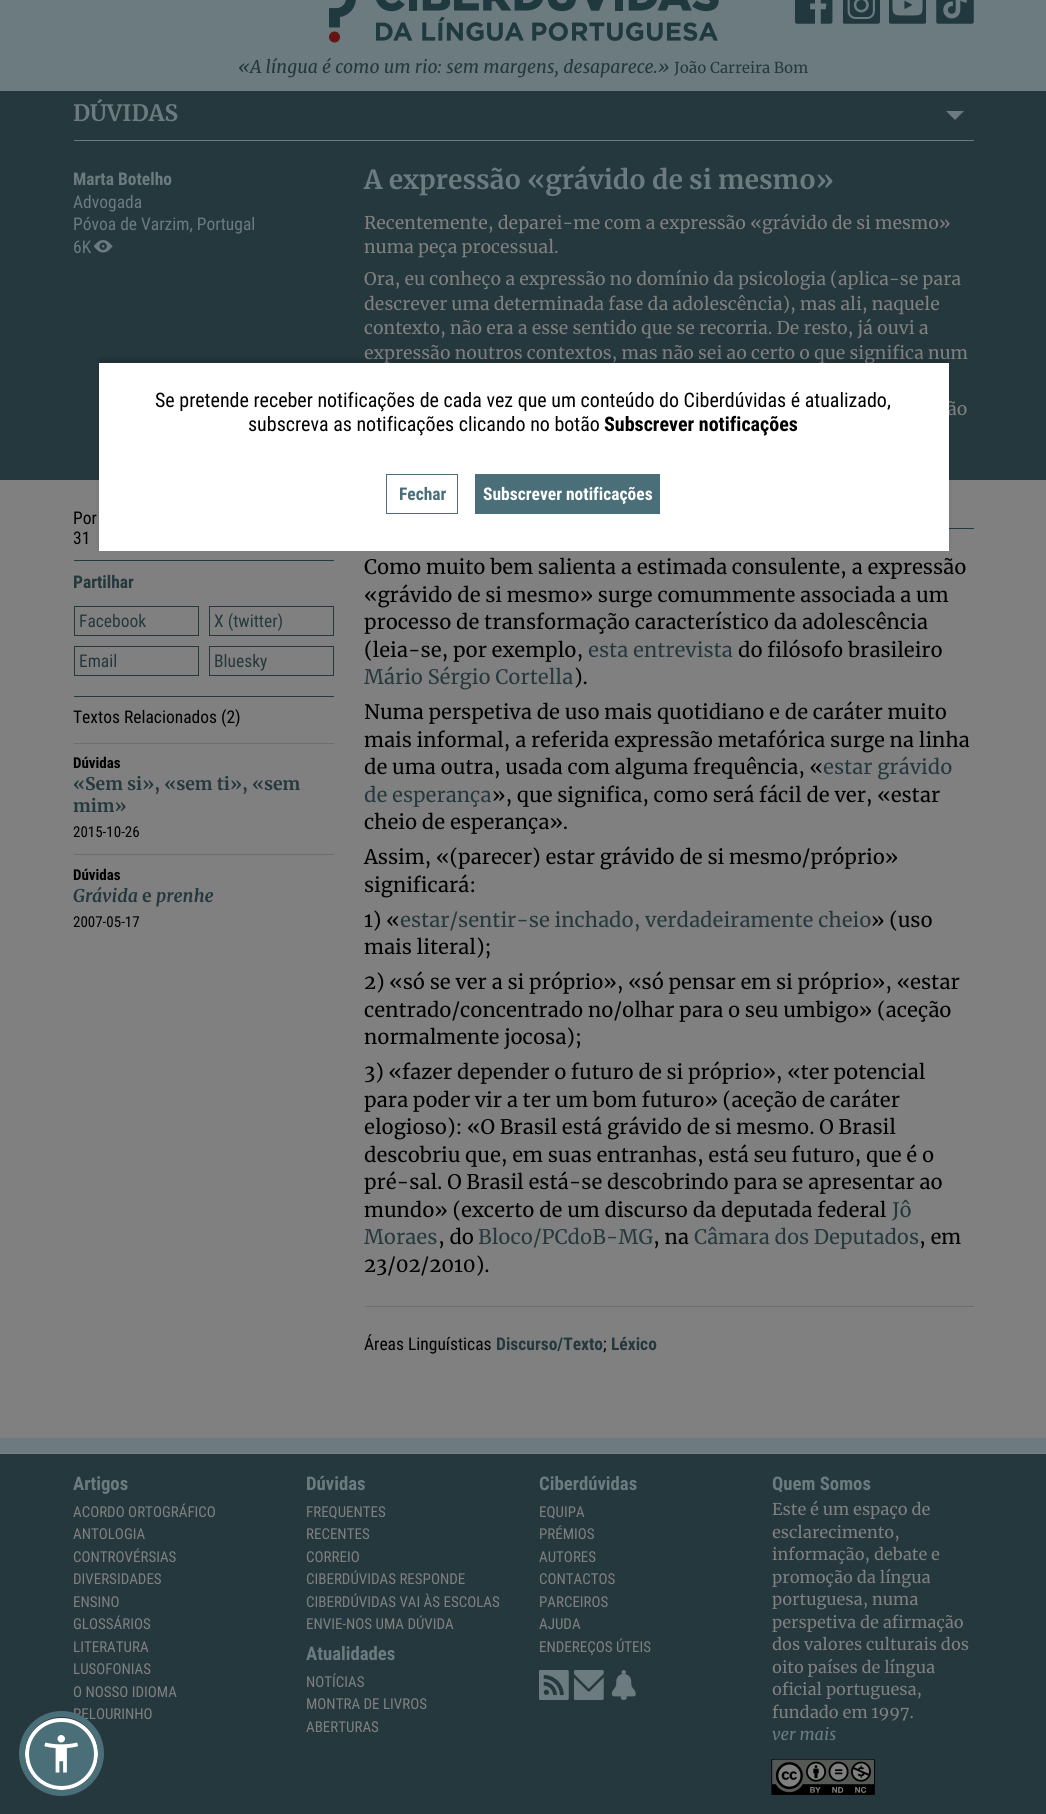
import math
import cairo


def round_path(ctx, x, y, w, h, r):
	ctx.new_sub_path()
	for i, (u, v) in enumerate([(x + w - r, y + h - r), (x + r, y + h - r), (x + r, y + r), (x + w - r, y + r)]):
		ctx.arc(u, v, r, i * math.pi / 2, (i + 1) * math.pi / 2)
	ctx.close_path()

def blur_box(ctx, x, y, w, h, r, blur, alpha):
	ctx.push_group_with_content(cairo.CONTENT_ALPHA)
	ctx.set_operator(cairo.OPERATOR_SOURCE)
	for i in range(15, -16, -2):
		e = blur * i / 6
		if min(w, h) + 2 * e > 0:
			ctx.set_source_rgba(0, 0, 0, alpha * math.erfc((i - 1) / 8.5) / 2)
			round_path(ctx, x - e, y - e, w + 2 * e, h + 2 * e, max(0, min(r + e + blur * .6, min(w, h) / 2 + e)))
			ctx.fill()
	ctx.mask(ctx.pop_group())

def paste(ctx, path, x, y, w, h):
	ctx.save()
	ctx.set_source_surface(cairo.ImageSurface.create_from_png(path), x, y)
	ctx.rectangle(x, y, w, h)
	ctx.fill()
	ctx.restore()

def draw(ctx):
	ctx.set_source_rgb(0.502, 0.502, 0.502)
	ctx.paint()
	ctx.set_source_rgb(0.42, 0.482, 0.502)
	ctx.rectangle(0, 0, 1046, 91)
	ctx.fill()
	paste(ctx, 'media/1.png', 329, 0, 390, 43)
	paste(ctx, 'media/2.png', 795, 0, 38, 24)
	paste(ctx, 'media/3.png', 843, 0, 37, 24)
	paste(ctx, 'media/4.png', 889, 0, 37, 24)
	paste(ctx, 'media/5.png', 936, 0, 38, 24)
	ctx.select_font_face('Merriweather', cairo.FONT_SLANT_ITALIC)
	ctx.set_font_size(17.5)
	ctx.set_source_rgb(0.145, 0.22, 0.239)
	ctx.move_to(238, 73)
	ctx.show_text('«A língua é como um rio: sem margens, desaparece.»')
	ctx.select_font_face('Merriweather')
	ctx.set_font_size(15)
	ctx.move_to(674, 73)
	ctx.show_text('João Carreira Bom')
	ctx.rectangle(0, 91, 1046, 389)
	ctx.fill()
	ctx.set_source_rgb(0.42, 0.482, 0.502)
	ctx.rectangle(74, 140, 900, 1)
	ctx.fill()
	ctx.select_font_face('Merriweather', cairo.FONT_SLANT_NORMAL, cairo.FONT_WEIGHT_BOLD)
	ctx.set_font_size(22.5)
	ctx.move_to(73, 121)
	ctx.show_text('DÚVIDAS')
	ctx.new_path()
	ctx.move_to(946, 111)
	ctx.line_to(964, 111)
	ctx.line_to(955, 120)
	ctx.close_path()
	ctx.fill()
	ctx.select_font_face('Roboto Condensed', cairo.FONT_SLANT_NORMAL, cairo.FONT_WEIGHT_BOLD)
	ctx.set_font_size(17.5)
	ctx.move_to(73, 185)
	ctx.show_text('Marta Botelho')
	ctx.select_font_face('Roboto Condensed')
	for x, y, s in [
		(73, 208, 'Advogada'),
		(73, 230, 'Póvoa de Varzim, Portugal'),
		(73, 253, '6K'),
	]:
		ctx.move_to(x, y)
		ctx.show_text(s)
	paste(ctx, 'media/6.png', 94, 240, 19, 13)
	ctx.select_font_face('Merriweather', cairo.FONT_SLANT_NORMAL, cairo.FONT_WEIGHT_BOLD)
	ctx.set_font_size(26.25)
	ctx.move_to(364, 189)
	ctx.show_text('A expressão «grávido de si mesmo»')
	ctx.select_font_face('Merriweather')
	ctx.set_font_size(17.5)
	ctx.set_source_rgb(0.502, 0.502, 0.502)
	for x, y, s in [
		(364, 229, 'Recentemente, deparei-me com a expressão «grávido de si mesmo»'),
		(364, 253, 'numa peça processual.'),
		(364, 285, 'Ora, eu conheço a expressão no domínio da psicologia (aplica-se para'),
		(364, 310, 'descrever uma determinada fase da adolescência), mas ali, naquele'),
		(364, 334, 'contexto, não era a esse sentido que se recorria. De resto, já ouvi a'),
		(364, 359, 'expressão noutros contextos, mas não sei ao certo o que significa num'),
		(947, 415, 'ão'),
	]:
		ctx.move_to(x, y)
		ctx.show_text(s)
	ctx.select_font_face('Roboto Condensed')
	ctx.set_source_rgb(0, 0, 0)
	ctx.move_to(73, 524)
	ctx.show_text('Por')
	ctx.move_to(73, 544)
	ctx.show_text('31')
	ctx.set_source_rgb(0.145, 0.22, 0.239)
	ctx.rectangle(74, 560, 260, 1)
	ctx.fill()
	ctx.select_font_face('Roboto Condensed', cairo.FONT_SLANT_NORMAL, cairo.FONT_WEIGHT_BOLD)
	ctx.move_to(73, 588)
	ctx.show_text('Partilhar')
	ctx.rectangle(74.5, 606.5, 124, 29)
	ctx.set_line_width(1)
	ctx.stroke()
	ctx.select_font_face('Roboto Condensed')
	ctx.move_to(79, 627)
	ctx.show_text('Facebook')
	ctx.rectangle(209.5, 606.5, 124, 29)
	ctx.stroke()
	ctx.move_to(214, 627)
	ctx.show_text('X (twitter)')
	ctx.rectangle(74.5, 646.5, 124, 29)
	ctx.stroke()
	ctx.move_to(79, 667)
	ctx.show_text('Email')
	ctx.rectangle(209.5, 646.5, 124, 29)
	ctx.stroke()
	ctx.move_to(214, 667)
	ctx.show_text('Bluesky')
	ctx.rectangle(74, 696, 260, 1)
	ctx.fill()
	ctx.set_source_rgb(0, 0, 0)
	ctx.move_to(73, 723)
	ctx.show_text('Textos Relacionados (2)')
	ctx.set_source_rgb(0.412, 0.431, 0.435)
	ctx.rectangle(74, 743, 260, 1)
	ctx.fill()
	ctx.rectangle(74, 854, 260, 1)
	ctx.fill()
	ctx.select_font_face('Roboto Condensed', cairo.FONT_SLANT_NORMAL, cairo.FONT_WEIGHT_BOLD)
	ctx.set_font_size(15)
	ctx.set_source_rgb(0, 0, 0)
	ctx.move_to(73, 768)
	ctx.show_text('Dúvidas')
	ctx.select_font_face('Merriweather', cairo.FONT_SLANT_NORMAL, cairo.FONT_WEIGHT_BOLD)
	ctx.set_font_size(17.5)
	ctx.set_source_rgb(0.145, 0.22, 0.239)
	ctx.move_to(73, 790)
	ctx.show_text('«Sem si», «sem ti», «sem')
	ctx.move_to(73, 812)
	ctx.show_text('mim»')
	ctx.select_font_face('Roboto Condensed')
	ctx.set_font_size(15)
	ctx.set_source_rgb(0, 0, 0)
	ctx.move_to(73, 837)
	ctx.show_text('2015-10-26')
	ctx.select_font_face('Roboto Condensed', cairo.FONT_SLANT_NORMAL, cairo.FONT_WEIGHT_BOLD)
	ctx.move_to(73, 880)
	ctx.show_text('Dúvidas')
	ctx.select_font_face('Merriweather', cairo.FONT_SLANT_ITALIC, cairo.FONT_WEIGHT_BOLD)
	ctx.set_font_size(17.5)
	ctx.set_source_rgb(0.145, 0.22, 0.239)
	ctx.move_to(73, 902)
	ctx.show_text('Grávida')
	ctx.select_font_face('Merriweather', cairo.FONT_SLANT_NORMAL, cairo.FONT_WEIGHT_BOLD)
	ctx.move_to(142, 902)
	ctx.show_text('e')
	ctx.select_font_face('Merriweather', cairo.FONT_SLANT_ITALIC, cairo.FONT_WEIGHT_BOLD)
	ctx.move_to(156, 902)
	ctx.show_text('prenhe')
	ctx.select_font_face('Roboto Condensed')
	ctx.set_font_size(15)
	ctx.set_source_rgb(0, 0, 0)
	ctx.move_to(73, 927)
	ctx.show_text('2007-05-17')
	ctx.set_source_rgb(0.145, 0.22, 0.239)
	ctx.rectangle(949, 528, 25, 1)
	ctx.fill()
	ctx.select_font_face('Merriweather')
	ctx.set_font_size(20)
	ctx.set_source_rgb(0, 0, 0)
	for x, y, s in [
		(364, 574, 'Como muito bem salienta a estimada consulente, a expressão'),
		(364, 602, '«grávido de si mesmo» surge comummente associada a um'),
		(364, 629, 'processo de transformação característico da adolescência'),
		(364, 657, '(leia-se, por exemplo,'),
	]:
		ctx.move_to(x, y)
		ctx.show_text(s)
	ctx.set_source_rgb(0.145, 0.22, 0.239)
	ctx.move_to(588, 657)
	ctx.show_text('esta entrevista')
	ctx.set_source_rgb(0, 0, 0)
	ctx.move_to(738, 657)
	ctx.show_text('do filósofo brasileiro')
	ctx.set_source_rgb(0.145, 0.22, 0.239)
	ctx.move_to(364, 684)
	ctx.show_text('Mário Sérgio Cortella')
	ctx.set_source_rgb(0, 0, 0)
	for x, y, s in [
		(574, 684, ').'),
		(364, 719, 'Numa perspetiva de uso mais quotidiano e de caráter muito'),
		(364, 747, 'mais informal, a referida expressão metafórica surge na linha'),
		(364, 774, 'de uma outra, usada com alguma frequência, «'),
	]:
		ctx.move_to(x, y)
		ctx.show_text(s)
	ctx.set_source_rgb(0.145, 0.22, 0.239)
	ctx.move_to(823, 774)
	ctx.show_text('estar grávido')
	ctx.move_to(364, 802)
	ctx.show_text('de esperança')
	ctx.set_source_rgb(0, 0, 0)
	for x, y, s in [
		(492, 802, '», que significa, como será fácil de ver, «estar'),
		(364, 829, 'cheio de esperança».'),
		(364, 864, 'Assim, «(parecer) estar grávido de si mesmo/próprio»'),
		(364, 892, 'significará:'),
		(364, 927, '1) «'),
	]:
		ctx.move_to(x, y)
		ctx.show_text(s)
	ctx.set_source_rgb(0.145, 0.22, 0.239)
	ctx.move_to(400, 927)
	ctx.show_text('estar/sentir-se inchado, verdadeiramente cheio')
	ctx.set_source_rgb(0, 0, 0)
	for x, y, s in [
		(871, 927, '» (uso'),
		(364, 954, 'mais literal);'),
		(364, 989, '2) «só se ver a si próprio», «só pensar em si próprio», «estar'),
		(364, 1017, 'centrado/concentrado no/olhar para o seu umbigo» (aceção'),
		(364, 1044, 'normalmente jocosa);'),
		(364, 1079, '3) «fazer depender o futuro de si próprio», «ter potencial'),
		(364, 1107, 'para poder vir a ter um bom futuro» (aceção de caráter'),
		(364, 1134, 'elogioso): «O Brasil está grávido de si mesmo. O Brasil'),
		(364, 1162, 'descobriu que, em suas entranhas, está seu futuro, que é o'),
		(364, 1189, 'pré-sal. O Brasil está-se descobrindo para se apresentar ao'),
		(364, 1217, 'mundo» (excerto de um discurso da deputada federal'),
	]:
		ctx.move_to(x, y)
		ctx.show_text(s)
	ctx.set_source_rgb(0.145, 0.22, 0.239)
	ctx.move_to(892, 1217)
	ctx.show_text('Jô')
	ctx.move_to(364, 1244)
	ctx.show_text('Moraes')
	ctx.set_source_rgb(0, 0, 0)
	ctx.move_to(438, 1244)
	ctx.show_text(', do')
	ctx.set_source_rgb(0.145, 0.22, 0.239)
	ctx.move_to(478, 1244)
	ctx.show_text('Bloco/PCdoB-MG')
	ctx.set_source_rgb(0, 0, 0)
	ctx.move_to(653, 1244)
	ctx.show_text(', na')
	ctx.set_source_rgb(0.145, 0.22, 0.239)
	ctx.move_to(694, 1244)
	ctx.show_text('Câmara dos Deputados')
	ctx.set_source_rgb(0, 0, 0)
	ctx.move_to(919, 1244)
	ctx.show_text(', em')
	ctx.move_to(364, 1272)
	ctx.show_text('23/02/2010).')
	ctx.set_source_rgb(0.412, 0.431, 0.435)
	ctx.rectangle(365, 1306, 609, 1)
	ctx.fill()
	ctx.select_font_face('Roboto Condensed')
	ctx.set_font_size(17.5)
	ctx.set_source_rgb(0, 0, 0)
	ctx.move_to(364, 1350)
	ctx.show_text('Áreas Linguísticas')
	ctx.select_font_face('Roboto Condensed', cairo.FONT_SLANT_NORMAL, cairo.FONT_WEIGHT_BOLD)
	ctx.set_source_rgb(0.145, 0.22, 0.239)
	ctx.move_to(496, 1350)
	ctx.show_text('Discurso/Texto')
	ctx.select_font_face('Roboto Condensed')
	ctx.set_source_rgb(0, 0, 0)
	ctx.move_to(603, 1350)
	ctx.show_text(';')
	ctx.select_font_face('Roboto Condensed', cairo.FONT_SLANT_NORMAL, cairo.FONT_WEIGHT_BOLD)
	ctx.set_source_rgb(0.145, 0.22, 0.239)
	ctx.move_to(611, 1350)
	ctx.show_text('Léxico')
	ctx.set_source_rgb(0.42, 0.482, 0.502)
	ctx.rectangle(0, 1438, 1046, 15)
	ctx.fill()
	ctx.set_source_rgb(0, 0, 0)
	blur_box(ctx, 99, 359, 850, 189, 0, 2, 0.15)
	ctx.set_source_rgb(1, 1, 1)
	ctx.rectangle(99, 363, 850, 188)
	ctx.fill()
	ctx.select_font_face('Roboto Condensed')
	ctx.set_font_size(20)
	ctx.set_source_rgb(0, 0, 0)
	ctx.move_to(155, 407)
	ctx.show_text('Se pretende receber notificações de cada vez que um conteúdo do Ciberdúvidas é atualizado,')
	ctx.move_to(248, 431)
	ctx.show_text('subscreva as notificações clicando no botão')
	ctx.select_font_face('Roboto Condensed', cairo.FONT_SLANT_NORMAL, cairo.FONT_WEIGHT_BOLD)
	ctx.move_to(604, 431)
	ctx.show_text('Subscrever notificações')
	ctx.rectangle(386.5, 474.5, 71, 39)
	ctx.set_source_rgb(0.29, 0.435, 0.475)
	ctx.stroke()
	ctx.set_font_size(17.5)
	ctx.move_to(399, 500)
	ctx.show_text('Fechar')
	ctx.rectangle(475, 474, 185, 40)
	ctx.fill()
	ctx.set_source_rgb(1, 1, 1)
	ctx.move_to(483, 500)
	ctx.show_text('Subscrever notificações')
	ctx.set_source_rgb(0.145, 0.22, 0.239)
	ctx.rectangle(0, 1454, 1046, 360)
	ctx.fill()
	ctx.set_font_size(18.75)
	ctx.set_source_rgb(0.42, 0.482, 0.502)
	ctx.move_to(73, 1490)
	ctx.show_text('Artigos')
	ctx.select_font_face('Roboto Condensed')
	ctx.set_font_size(15)
	ctx.set_source_rgb(0.502, 0.502, 0.502)
	for x, y, s in [
		(73, 1517, 'ACORDO ORTOGRÁFICO'),
		(73, 1539, 'ANTOLOGIA'),
		(73, 1562, 'CONTROVÉRSIAS'),
		(73, 1584, 'DIVERSIDADES'),
		(73, 1607, 'ENSINO'),
		(73, 1629, 'GLOSSÁRIOS'),
		(73, 1652, 'LITERATURA'),
		(73, 1674, 'LUSOFONIAS'),
		(73, 1697, 'O NOSSO IDIOMA'),
		(73, 1719, 'PELOURINHO'),
	]:
		ctx.move_to(x, y)
		ctx.show_text(s)
	ctx.select_font_face('Roboto Condensed', cairo.FONT_SLANT_NORMAL, cairo.FONT_WEIGHT_BOLD)
	ctx.set_font_size(18.75)
	ctx.set_source_rgb(0.42, 0.482, 0.502)
	ctx.move_to(306, 1490)
	ctx.show_text('Dúvidas')
	ctx.select_font_face('Roboto Condensed')
	ctx.set_font_size(15)
	ctx.set_source_rgb(0.502, 0.502, 0.502)
	for x, y, s in [
		(306, 1517, 'FREQUENTES'),
		(306, 1539, 'RECENTES'),
		(306, 1562, 'CORREIO'),
		(306, 1584, 'CIBERDÚVIDAS RESPONDE'),
		(306, 1607, 'CIBERDÚVIDAS VAI ÀS ESCOLAS'),
		(306, 1629, 'ENVIE-NOS UMA DÚVIDA'),
	]:
		ctx.move_to(x, y)
		ctx.show_text(s)
	ctx.select_font_face('Roboto Condensed', cairo.FONT_SLANT_NORMAL, cairo.FONT_WEIGHT_BOLD)
	ctx.set_font_size(18.75)
	ctx.set_source_rgb(0.42, 0.482, 0.502)
	ctx.move_to(306, 1660)
	ctx.show_text('Atualidades')
	ctx.select_font_face('Roboto Condensed')
	ctx.set_font_size(15)
	ctx.set_source_rgb(0.502, 0.502, 0.502)
	for x, y, s in [
		(306, 1687, 'NOTÍCIAS'),
		(306, 1709, 'MONTRA DE LIVROS'),
		(306, 1732, 'ABERTURAS'),
	]:
		ctx.move_to(x, y)
		ctx.show_text(s)
	ctx.select_font_face('Roboto Condensed', cairo.FONT_SLANT_NORMAL, cairo.FONT_WEIGHT_BOLD)
	ctx.set_font_size(18.75)
	ctx.set_source_rgb(0.42, 0.482, 0.502)
	ctx.move_to(539, 1490)
	ctx.show_text('Ciberdúvidas')
	ctx.select_font_face('Roboto Condensed')
	ctx.set_font_size(15)
	ctx.set_source_rgb(0.502, 0.502, 0.502)
	for x, y, s in [
		(539, 1517, 'EQUIPA'),
		(539, 1539, 'PRÉMIOS'),
		(539, 1562, 'AUTORES'),
		(539, 1584, 'CONTACTOS'),
		(539, 1607, 'PARCEIROS'),
		(539, 1629, 'AJUDA'),
		(539, 1652, 'ENDEREÇOS ÚTEIS'),
	]:
		ctx.move_to(x, y)
		ctx.show_text(s)
	paste(ctx, 'media/7.png', 539, 1670, 30, 30)
	paste(ctx, 'media/8.png', 574, 1670, 30, 30)
	paste(ctx, 'media/9.png', 611, 1670, 25, 30)
	ctx.select_font_face('Roboto Condensed', cairo.FONT_SLANT_NORMAL, cairo.FONT_WEIGHT_BOLD)
	ctx.set_font_size(18.75)
	ctx.set_source_rgb(0.42, 0.482, 0.502)
	ctx.move_to(772, 1490)
	ctx.show_text('Quem Somos')
	ctx.select_font_face('Merriweather')
	ctx.set_font_size(16.25)
	ctx.set_source_rgb(0.502, 0.502, 0.502)
	for x, y, s in [
		(772, 1515, 'Este é um espaço de'),
		(772, 1538, 'esclarecimento,'),
		(772, 1560, 'informação, debate e'),
		(772, 1583, 'promoção da língua'),
		(772, 1605, 'portuguesa, numa'),
		(772, 1628, 'perspetiva de afirmação'),
		(772, 1650, 'dos valores culturais dos'),
		(772, 1673, 'oito países de língua'),
		(772, 1695, 'oficial portuguesa,'),
		(772, 1718, 'fundado em 1997.'),
	]:
		ctx.move_to(x, y)
		ctx.show_text(s)
	ctx.select_font_face('Merriweather', cairo.FONT_SLANT_ITALIC)
	ctx.set_source_rgb(0.42, 0.482, 0.502)
	ctx.move_to(772, 1740)
	ctx.show_text('ver mais')
	paste(ctx, 'media/10.png', 771, 1759, 104, 36)
	ctx.set_source_rgb(0.365, 0.392, 0.58)
	blur_box(ctx, 25, 1720, 73, 73, 36.5, 2.5, 0.2)
	ctx.set_source_rgb(0.29, 0.435, 0.475)
	round_path(ctx, 27, 1720, 69, 68, 34)
	ctx.fill_preserve()
	ctx.set_source_rgb(1, 1, 1)
	ctx.set_line_width(4)
	ctx.stroke()
	ctx.arc(61.5, 1753.5, 39.5, 0, 2 * math.pi)
	ctx.set_source_rgb(0.29, 0.435, 0.475)
	ctx.set_line_width(6)
	ctx.stroke()
	paste(ctx, 'media/11.png', 44, 1735, 35, 38)


surface = cairo.ImageSurface(cairo.FORMAT_RGB24, 1046, 1814)
ctx = cairo.Context(surface)
options = cairo.FontOptions()
options.set_hint_metrics(cairo.HINT_METRICS_OFF)
options.set_hint_style(cairo.HINT_STYLE_NONE)
ctx.set_font_options(options)
ctx.set_miter_limit(4)
draw(ctx)
surface.write_to_png('image.png')
